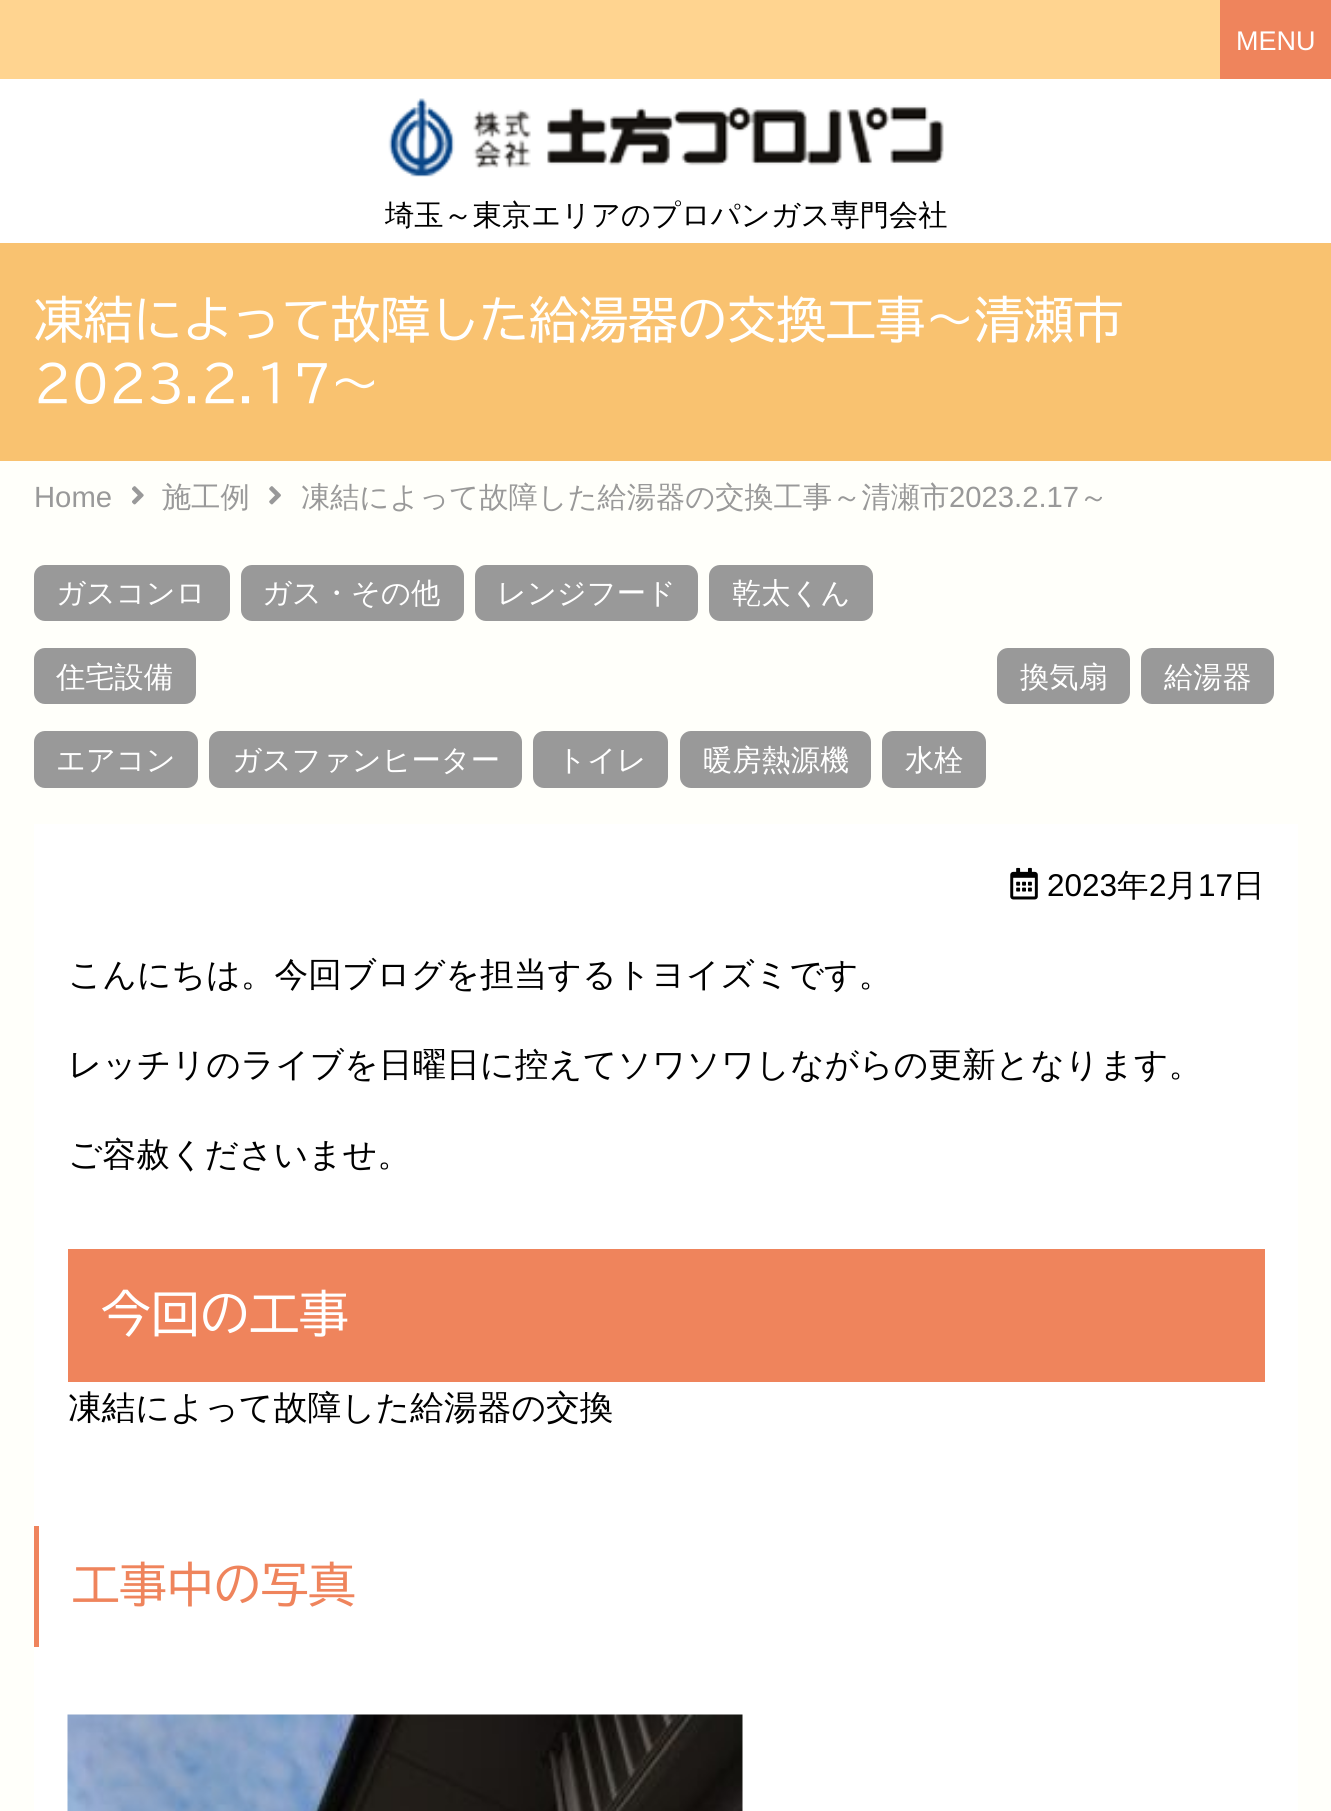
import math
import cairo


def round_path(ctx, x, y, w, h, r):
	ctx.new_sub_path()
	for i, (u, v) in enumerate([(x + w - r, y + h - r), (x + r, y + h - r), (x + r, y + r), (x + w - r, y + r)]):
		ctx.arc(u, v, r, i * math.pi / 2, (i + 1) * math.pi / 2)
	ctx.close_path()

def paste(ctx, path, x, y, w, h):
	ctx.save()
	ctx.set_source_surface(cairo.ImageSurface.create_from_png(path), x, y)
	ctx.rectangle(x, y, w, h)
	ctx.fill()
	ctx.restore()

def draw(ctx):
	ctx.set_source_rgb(1, 1, 0.98)
	ctx.paint()
	ctx.set_source_rgb(0.937, 0.518, 0.361)
	ctx.rectangle(1220, 0, 111, 79)
	ctx.fill()
	ctx.select_font_face('Liberation Sans')
	ctx.set_font_size(27)
	ctx.set_source_rgb(1, 1, 1)
	ctx.move_to(1236, 50)
	ctx.show_text('MENU')
	ctx.rectangle(0, 79, 1331, 164)
	ctx.fill()
	ctx.set_source_rgb(1, 0.831, 0.565)
	ctx.rectangle(0, 0, 1220, 79)
	ctx.fill()
	paste(ctx, 'media/1.png', 388, 98, 556, 79)
	ctx.select_font_face('WenQuanYi Zen Hei Medium')
	ctx.set_font_size(29.25)
	ctx.set_source_rgb(0, 0, 0)
	ctx.move_to(385, 225)
	ctx.show_text('埼玉～東京エリアのプロパンガス専門会社')
	ctx.set_source_rgb(0.976, 0.761, 0.439)
	ctx.rectangle(0, 243, 1331, 218)
	ctx.fill()
	ctx.select_font_face('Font')
	ctx.set_font_size(49.5)
	ctx.set_source_rgb(1, 1, 1)
	ctx.move_to(34, 338)
	ctx.show_text('凍結によって故障した給湯器の交換工事～清瀬市')
	ctx.move_to(34, 402)
	ctx.show_text('2023.2.17～')
	ctx.select_font_face('Liberation Sans')
	ctx.set_font_size(29.25)
	ctx.set_source_rgb(0.6, 0.6, 0.6)
	ctx.move_to(34, 507)
	ctx.show_text('Home')
	paste(ctx, 'media/2.png', 132, 486, 12, 19)
	ctx.select_font_face('WenQuanYi Zen Hei Medium')
	ctx.move_to(162, 507)
	ctx.show_text('施工例')
	paste(ctx, 'media/3.png', 269, 486, 12, 19)
	ctx.move_to(301, 507)
	ctx.show_text('凍結によって故障した給湯器の交換工事～清瀬市')
	ctx.select_font_face('Liberation Sans')
	ctx.move_to(949, 507)
	ctx.show_text('2023.2.17')
	ctx.select_font_face('WenQuanYi Zen Hei Medium')
	ctx.move_to(1079, 507)
	ctx.show_text('～')
	round_path(ctx, 34, 565, 196, 56, 11)
	ctx.fill()
	ctx.set_source_rgb(1, 1, 1)
	ctx.move_to(56, 603)
	ctx.show_text('ガスコンロ')
	ctx.set_source_rgb(0.6, 0.6, 0.6)
	round_path(ctx, 241, 565, 223, 56, 11)
	ctx.fill()
	ctx.set_source_rgb(1, 1, 1)
	ctx.move_to(262, 603)
	ctx.show_text('ガス・その他')
	ctx.set_source_rgb(0.6, 0.6, 0.6)
	round_path(ctx, 475, 565, 223, 56, 11)
	ctx.fill()
	ctx.set_source_rgb(1, 1, 1)
	ctx.move_to(497, 603)
	ctx.show_text('レンジフード')
	ctx.set_source_rgb(0.6, 0.6, 0.6)
	round_path(ctx, 709, 565, 164, 56, 11)
	ctx.fill()
	ctx.set_source_rgb(1, 1, 1)
	ctx.move_to(732, 603)
	ctx.show_text('乾太くん')
	ctx.set_source_rgb(0.6, 0.6, 0.6)
	round_path(ctx, 34, 648, 162, 56, 11)
	ctx.fill()
	ctx.set_source_rgb(1, 1, 1)
	ctx.move_to(56, 687)
	ctx.show_text('住宅設備')
	ctx.set_source_rgb(0.6, 0.6, 0.6)
	round_path(ctx, 34, 731, 164, 57, 11)
	ctx.fill()
	ctx.set_source_rgb(1, 1, 1)
	ctx.move_to(56, 770)
	ctx.show_text('エアコン')
	ctx.set_source_rgb(0.6, 0.6, 0.6)
	round_path(ctx, 209, 731, 313, 57, 11)
	ctx.fill()
	ctx.set_source_rgb(1, 1, 1)
	ctx.move_to(232, 770)
	ctx.show_text('ガスファンヒーター')
	ctx.set_source_rgb(0.6, 0.6, 0.6)
	round_path(ctx, 533, 731, 135, 57, 11)
	ctx.fill()
	ctx.set_source_rgb(1, 1, 1)
	ctx.move_to(557, 770)
	ctx.show_text('トイレ')
	ctx.set_source_rgb(0.6, 0.6, 0.6)
	round_path(ctx, 680, 731, 191, 57, 11)
	ctx.fill()
	ctx.set_source_rgb(1, 1, 1)
	ctx.move_to(703, 770)
	ctx.show_text('暖房熱源機')
	ctx.set_source_rgb(0.6, 0.6, 0.6)
	round_path(ctx, 882, 731, 104, 57, 11)
	ctx.fill()
	ctx.set_source_rgb(1, 1, 1)
	ctx.move_to(905, 770)
	ctx.show_text('水栓')
	ctx.set_source_rgb(0.6, 0.6, 0.6)
	round_path(ctx, 997, 648, 133, 56, 11)
	ctx.fill()
	ctx.set_source_rgb(1, 1, 1)
	ctx.move_to(1020, 687)
	ctx.show_text('換気扇')
	ctx.set_source_rgb(0.6, 0.6, 0.6)
	round_path(ctx, 1141, 648, 133, 56, 11)
	ctx.fill()
	ctx.set_source_rgb(1, 1, 1)
	ctx.move_to(1164, 687)
	ctx.show_text('給湯器')
	ctx.rectangle(34, 824, 1264, 987)
	ctx.fill()
	paste(ctx, 'media/4.png', 1010, 867, 28, 33)
	ctx.select_font_face('Liberation Sans')
	ctx.set_font_size(31.5)
	ctx.set_source_rgb(0, 0, 0)
	ctx.move_to(1047, 896)
	ctx.show_text('2023')
	ctx.select_font_face('WenQuanYi Zen Hei Medium')
	ctx.move_to(1117, 896)
	ctx.show_text('年')
	ctx.select_font_face('Liberation Sans')
	ctx.move_to(1149, 896)
	ctx.show_text('2')
	ctx.select_font_face('WenQuanYi Zen Hei Medium')
	ctx.move_to(1166, 896)
	ctx.show_text('月')
	ctx.select_font_face('Liberation Sans')
	ctx.move_to(1198, 896)
	ctx.show_text('17')
	ctx.select_font_face('WenQuanYi Zen Hei Medium')
	ctx.move_to(1233, 896)
	ctx.show_text('日')
	ctx.set_font_size(33.75)
	for x, y, s in [
		(68, 986, 'こんにちは。今回ブログを担当するトヨイズミです。'),
		(68, 1076, 'レッチリのライブを日曜日に控えてソワソワしながらの更新となります。'),
		(68, 1166, 'ご容赦くださいませ。'),
	]:
		ctx.move_to(x, y)
		ctx.show_text(s)
	ctx.set_source_rgb(0.937, 0.518, 0.361)
	ctx.rectangle(68, 1249, 1197, 133)
	ctx.fill()
	ctx.select_font_face('Font')
	ctx.set_font_size(49.5)
	ctx.set_source_rgb(1, 1, 1)
	ctx.move_to(101, 1332)
	ctx.show_text('今回の工事')
	ctx.select_font_face('WenQuanYi Zen Hei Medium')
	ctx.set_font_size(33.75)
	ctx.set_source_rgb(0, 0, 0)
	ctx.move_to(68, 1419)
	ctx.show_text('凍結によって故障した給湯器の交換')
	ctx.set_source_rgb(0.937, 0.518, 0.361)
	ctx.rectangle(34, 1526, 5, 121)
	ctx.fill()
	ctx.select_font_face('Font')
	ctx.set_font_size(47.25)
	ctx.move_to(72, 1602)
	ctx.show_text('工事中の写真')
	paste(ctx, 'media/5.png', 67, 1714, 676, 97)


surface = cairo.ImageSurface(cairo.FORMAT_RGB24, 1331, 1811)
ctx = cairo.Context(surface)
options = cairo.FontOptions()
options.set_hint_metrics(cairo.HINT_METRICS_OFF)
options.set_hint_style(cairo.HINT_STYLE_NONE)
ctx.set_font_options(options)
ctx.set_miter_limit(4)
draw(ctx)
surface.write_to_png('image.png')
